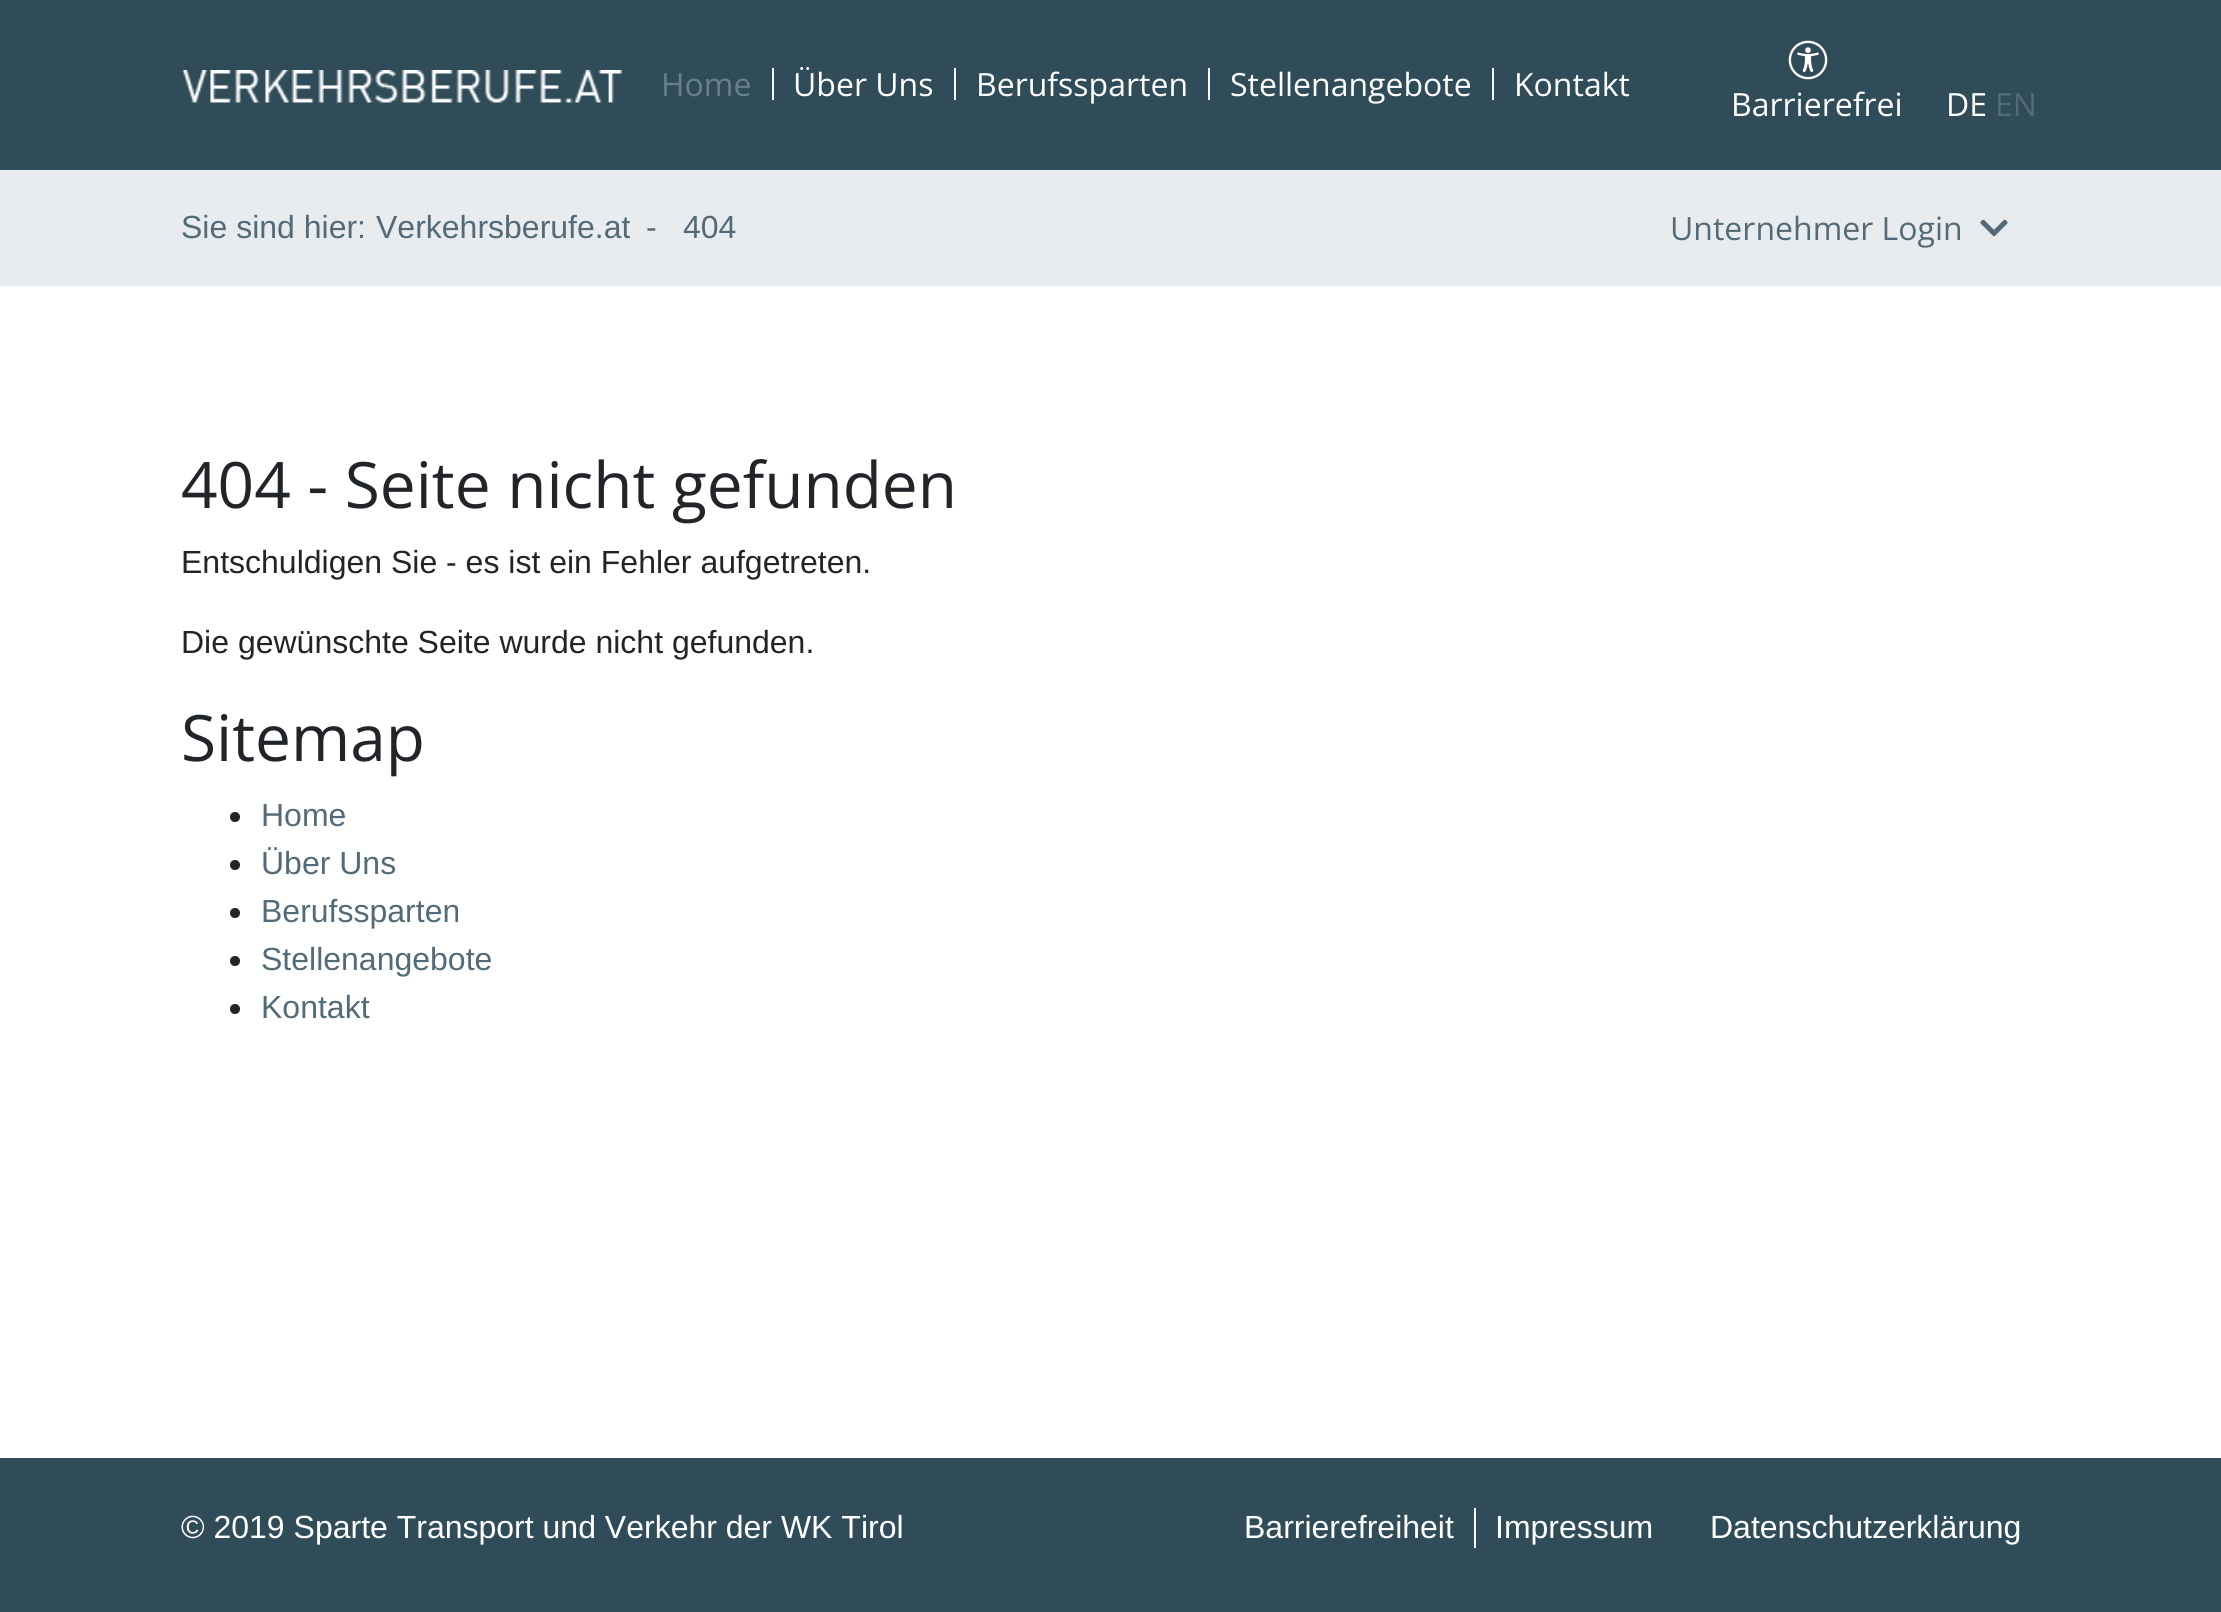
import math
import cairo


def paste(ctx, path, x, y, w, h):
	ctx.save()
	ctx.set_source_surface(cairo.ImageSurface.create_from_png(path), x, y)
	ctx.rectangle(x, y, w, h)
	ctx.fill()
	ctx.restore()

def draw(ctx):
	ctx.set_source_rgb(1, 1, 1)
	ctx.paint()
	ctx.set_source_rgb(0.188, 0.298, 0.349)
	ctx.rectangle(0, 0, 2221, 170)
	ctx.fill()
	paste(ctx, 'media/1.png', 182, 70, 440, 33)
	ctx.set_source_rgb(1, 1, 1)
	ctx.rectangle(772, 68, 2, 32)
	ctx.fill()
	ctx.select_font_face('Open Sans')
	ctx.set_font_size(32)
	ctx.set_source_rgb(0.404, 0.502, 0.537)
	ctx.move_to(661, 96)
	ctx.show_text('Home')
	ctx.set_source_rgb(1, 1, 1)
	ctx.rectangle(954, 68, 2, 32)
	ctx.fill()
	ctx.move_to(793, 96)
	ctx.show_text('Über Uns')
	ctx.rectangle(1208, 68, 2, 32)
	ctx.fill()
	ctx.move_to(976, 96)
	ctx.show_text('Berufssparten')
	ctx.rectangle(1492, 68, 2, 32)
	ctx.fill()
	ctx.move_to(1230, 96)
	ctx.show_text('Stellenangebote')
	ctx.move_to(1514, 96)
	ctx.show_text('Kontakt')
	paste(ctx, 'media/2.png', 1788, 40, 40, 40)
	ctx.move_to(1731, 116)
	ctx.show_text('Barrierefrei')
	ctx.move_to(1946, 116)
	ctx.show_text('DE')
	ctx.set_source_rgb(0.325, 0.42, 0.471)
	ctx.move_to(1995, 116)
	ctx.show_text('EN')
	ctx.set_source_rgb(0.914, 0.925, 0.937)
	ctx.rectangle(0, 170, 2221, 116)
	ctx.fill()
	ctx.select_font_face('Liberation Sans')
	ctx.set_source_rgb(0.325, 0.42, 0.471)
	for x, y, s in [
		(181, 238, 'Sie sind hier:'),
		(376, 238, 'Verkehrsberufe.at'),
		(646, 238, '-'),
		(683, 238, '404'),
	]:
		ctx.move_to(x, y)
		ctx.show_text(s)
	ctx.select_font_face('Open Sans')
	ctx.move_to(1670, 240)
	ctx.show_text('Unternehmer Login')
	paste(ctx, 'media/3.png', 1980, 219, 28, 18)
	ctx.set_font_size(64)
	ctx.set_source_rgb(0.129, 0.145, 0.161)
	ctx.move_to(181, 508)
	ctx.show_text('404 - Seite nicht gefunden')
	ctx.select_font_face('Liberation Sans')
	ctx.set_font_size(32)
	ctx.move_to(181, 573)
	ctx.show_text('Entschuldigen Sie - es ist ein Fehler aufgetreten.')
	ctx.move_to(181, 653)
	ctx.show_text('Die gewünschte Seite wurde nicht gefunden.')
	ctx.select_font_face('Open Sans')
	ctx.set_font_size(64)
	ctx.move_to(181, 761)
	ctx.show_text('Sitemap')
	ctx.new_path()
	ctx.arc(235, 817, 5, 0, 2 * math.pi)
	ctx.fill()
	ctx.select_font_face('Liberation Sans')
	ctx.set_font_size(32)
	ctx.set_source_rgb(0.325, 0.42, 0.471)
	ctx.move_to(261, 826)
	ctx.show_text('Home')
	ctx.set_source_rgb(0.129, 0.145, 0.161)
	ctx.new_path()
	ctx.arc(235, 865, 5, 0, 2 * math.pi)
	ctx.fill()
	ctx.set_source_rgb(0.325, 0.42, 0.471)
	ctx.move_to(261, 874)
	ctx.show_text('Über Uns')
	ctx.set_source_rgb(0.129, 0.145, 0.161)
	ctx.new_path()
	ctx.arc(235, 913, 5, 0, 2 * math.pi)
	ctx.fill()
	ctx.set_source_rgb(0.325, 0.42, 0.471)
	ctx.move_to(261, 922)
	ctx.show_text('Berufssparten')
	ctx.set_source_rgb(0.129, 0.145, 0.161)
	ctx.new_path()
	ctx.arc(235, 961, 5, 0, 2 * math.pi)
	ctx.fill()
	ctx.set_source_rgb(0.325, 0.42, 0.471)
	ctx.move_to(261, 970)
	ctx.show_text('Stellenangebote')
	ctx.set_source_rgb(0.129, 0.145, 0.161)
	ctx.new_path()
	ctx.arc(235, 1009, 5, 0, 2 * math.pi)
	ctx.fill()
	ctx.set_source_rgb(0.325, 0.42, 0.471)
	ctx.move_to(261, 1018)
	ctx.show_text('Kontakt')
	ctx.set_source_rgb(0.188, 0.298, 0.349)
	ctx.rectangle(0, 1458, 2221, 154)
	ctx.fill()
	ctx.set_source_rgb(1, 1, 1)
	ctx.move_to(181, 1538)
	ctx.show_text('© 2019 Sparte Transport und Verkehr der WK Tirol')
	ctx.rectangle(1474, 1508, 2, 40)
	ctx.fill()
	for x, y, s in [
		(1244, 1538, 'Barrierefreiheit'),
		(1495, 1538, 'Impressum'),
		(1710, 1538, 'Datenschutzerklärung'),
	]:
		ctx.move_to(x, y)
		ctx.show_text(s)


surface = cairo.ImageSurface(cairo.FORMAT_RGB24, 2221, 1612)
ctx = cairo.Context(surface)
options = cairo.FontOptions()
options.set_hint_metrics(cairo.HINT_METRICS_OFF)
options.set_hint_style(cairo.HINT_STYLE_NONE)
ctx.set_font_options(options)
ctx.set_miter_limit(4)
draw(ctx)
surface.write_to_png('image.png')
